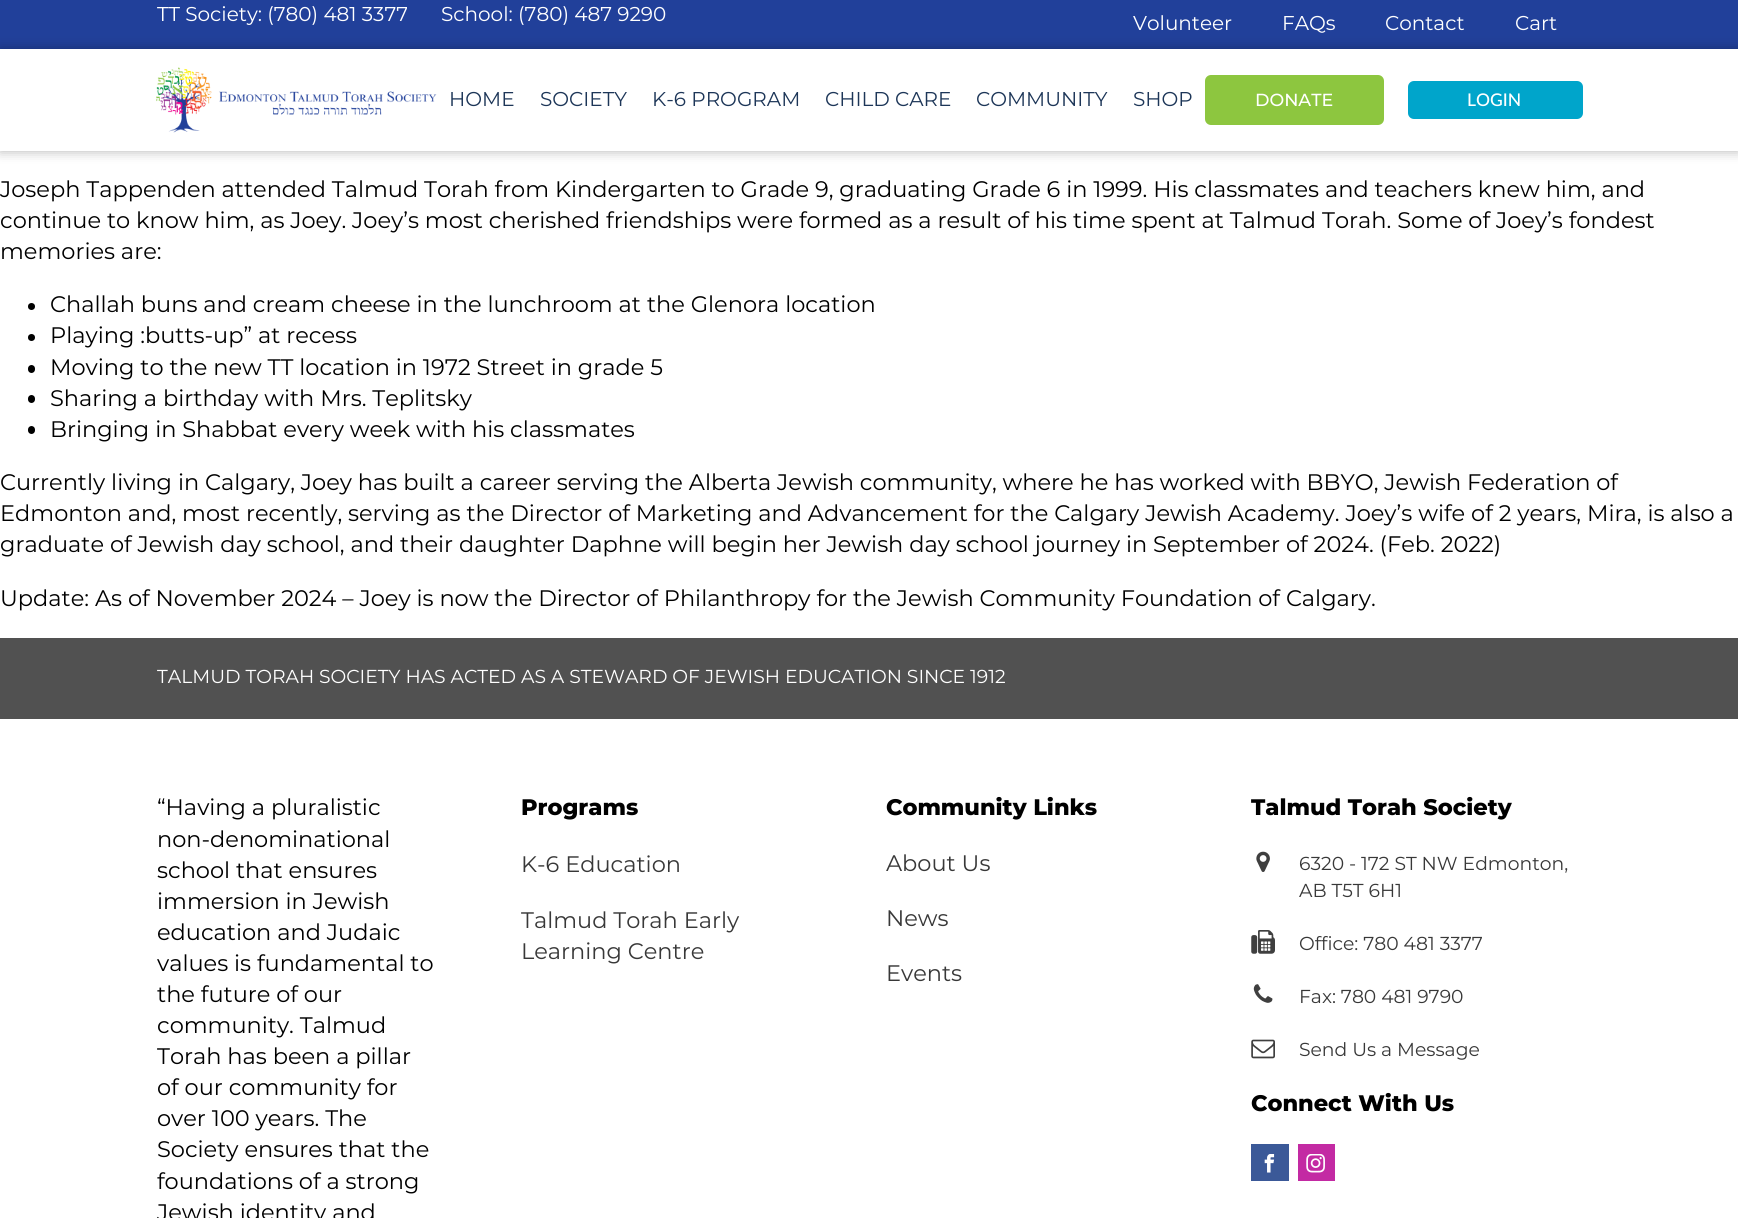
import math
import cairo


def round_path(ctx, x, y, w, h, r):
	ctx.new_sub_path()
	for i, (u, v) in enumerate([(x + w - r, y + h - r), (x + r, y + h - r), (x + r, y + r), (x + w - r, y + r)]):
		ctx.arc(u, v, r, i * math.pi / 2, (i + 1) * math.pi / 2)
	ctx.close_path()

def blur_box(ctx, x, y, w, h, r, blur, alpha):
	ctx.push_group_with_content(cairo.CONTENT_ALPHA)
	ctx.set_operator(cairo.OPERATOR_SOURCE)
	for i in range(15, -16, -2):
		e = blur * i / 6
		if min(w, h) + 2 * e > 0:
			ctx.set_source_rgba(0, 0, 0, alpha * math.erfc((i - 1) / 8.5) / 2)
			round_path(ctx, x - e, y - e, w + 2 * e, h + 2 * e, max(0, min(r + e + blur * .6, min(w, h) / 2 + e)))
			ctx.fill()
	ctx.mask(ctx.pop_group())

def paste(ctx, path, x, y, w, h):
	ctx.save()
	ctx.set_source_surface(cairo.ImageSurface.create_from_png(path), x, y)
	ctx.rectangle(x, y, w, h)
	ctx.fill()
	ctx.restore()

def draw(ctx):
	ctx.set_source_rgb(1, 1, 1)
	ctx.paint()
	ctx.set_source_rgb(0.129, 0.251, 0.604)
	ctx.rectangle(0, 0, 1738, 49)
	ctx.fill()
	ctx.select_font_face('Montserrat')
	ctx.set_font_size(20)
	ctx.set_source_rgb(1, 1, 1)
	for x, y, s in [
		(157, 21, 'TT Society: (780) 481 3377'),
		(441, 21, 'School: (780) 487 9290'),
		(1133, 30, 'Volunteer'),
		(1282, 30, 'FAQs'),
		(1385, 30, 'Contact'),
		(1515, 30, 'Cart'),
	]:
		ctx.move_to(x, y)
		ctx.show_text(s)
	ctx.save()
	ctx.set_fill_rule(cairo.FILL_RULE_EVEN_ODD)
	ctx.new_path()
	ctx.move_to(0, 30)
	ctx.line_to(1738, 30)
	ctx.line_to(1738, 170)
	ctx.line_to(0, 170)
	ctx.close_path()
	ctx.move_to(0, 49)
	ctx.line_to(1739, 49)
	ctx.line_to(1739, 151)
	ctx.line_to(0, 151)
	ctx.close_path()
	ctx.clip()
	ctx.set_source_rgb(0, 0, 0)
	blur_box(ctx, 0, 49, 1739, 102, 0, 6, 0.3)
	ctx.restore()
	paste(ctx, 'media/1.png', 156, 67, 281, 66)
	ctx.set_source_rgb(0.114, 0.212, 0.345)
	for x, y, s in [
		(449, 106, 'HOME'),
		(540, 106, 'SOCIETY'),
		(652, 106, 'K-6 PROGRAM'),
		(825, 106, 'CHILD CARE'),
		(976, 106, 'COMMUNITY'),
		(1133, 106, 'SHOP'),
	]:
		ctx.move_to(x, y)
		ctx.show_text(s)
	ctx.set_source_rgb(0.553, 0.776, 0.247)
	round_path(ctx, 1205, 75, 179, 50, 6)
	ctx.fill()
	ctx.select_font_face('Montserrat Medium')
	ctx.set_font_size(17.5)
	ctx.set_source_rgb(1, 1, 1)
	ctx.move_to(1255, 106)
	ctx.show_text('DONATE')
	ctx.set_source_rgb(0, 0.647, 0.796)
	round_path(ctx, 1408, 81, 175, 38, 6)
	ctx.fill()
	ctx.select_font_face('Lato Medium')
	ctx.set_source_rgb(1, 1, 1)
	ctx.move_to(1467, 106)
	ctx.show_text('LOGIN')
	ctx.select_font_face('Montserrat')
	ctx.set_font_size(22.48)
	ctx.set_source_rgb(0, 0, 0)
	for x, y, s in [
		(0, 197, 'Joseph Tappenden attended Talmud Torah from Kindergarten to Grade 9, graduating Grade 6 in 1999. His classmates and teachers knew him, and'),
		(0, 228, 'continue to know him, as Joey. Joey’s most cherished friendships were formed as a result of his time spent at Talmud Torah. Some of Joey’s fondest'),
		(0, 259, 'memories are:'),
	]:
		ctx.move_to(x, y)
		ctx.show_text(s)
	ctx.new_path()
	ctx.arc(31.5, 306.5, 3.5, 0, 2 * math.pi)
	ctx.fill()
	ctx.move_to(50, 312)
	ctx.show_text('Challah buns and cream cheese in the lunchroom at the Glenora location')
	ctx.new_path()
	ctx.arc(31.5, 337.5, 3.5, 0, 2 * math.pi)
	ctx.fill()
	ctx.move_to(50, 343)
	ctx.show_text('Playing :butts-up” at recess')
	round_path(ctx, 28, 365, 7, 8, 3.5)
	ctx.fill()
	ctx.move_to(50, 375)
	ctx.show_text('Moving to the new TT location in 1972 Street in grade 5')
	round_path(ctx, 28, 395, 7, 8, 3.5)
	ctx.fill()
	ctx.move_to(50, 406)
	ctx.show_text('Sharing a birthday with Mrs. Teplitsky')
	round_path(ctx, 28, 426, 7, 8, 3.5)
	ctx.fill()
	for x, y, s in [
		(50, 437, 'Bringing in Shabbat every week with his classmates'),
		(0, 490, 'Currently living in Calgary, Joey has built a career serving the Alberta Jewish community, where he has worked with BBYO, Jewish Federation of'),
		(0, 521, 'Edmonton and, most recently, serving as the Director of Marketing and Advancement for the Calgary Jewish Academy. Joey’s wife of 2 years, Mira, is also a'),
		(0, 552, 'graduate of Jewish day school, and their daughter Daphne will begin her Jewish day school journey in September of 2024. (Feb. 2022)'),
		(0, 606, 'Update: As of November 2024 – Joey is now the Director of Philanthropy for the Jewish Community Foundation of Calgary.'),
	]:
		ctx.move_to(x, y)
		ctx.show_text(s)
	ctx.set_source_rgb(0.318, 0.318, 0.318)
	ctx.rectangle(0, 638, 1738, 81)
	ctx.fill()
	ctx.set_font_size(18.75)
	ctx.set_source_rgb(1, 1, 1)
	ctx.move_to(157, 683)
	ctx.show_text('TALMUD TORAH SOCIETY HAS ACTED AS A STEWARD OF JEWISH EDUCATION SINCE 1912')
	ctx.set_font_size(22.48)
	ctx.set_source_rgb(0, 0, 0)
	for x, y, s in [
		(157, 815, '“Having a pluralistic'),
		(157, 847, 'non-denominational'),
		(157, 878, 'school that ensures'),
		(157, 909, 'immersion in Jewish'),
		(157, 940, 'education and Judaic'),
		(157, 971, 'values is fundamental to'),
		(157, 1002, 'the future of our'),
		(157, 1033, 'community. Talmud'),
		(157, 1064, 'Torah has been a pillar'),
		(157, 1095, 'of our community for'),
		(157, 1126, 'over 100 years. The'),
		(157, 1157, 'Society ensures that the'),
		(157, 1189, 'foundations of a strong'),
		(157, 1220, 'Jewish identity and'),
	]:
		ctx.move_to(x, y)
		ctx.show_text(s)
	ctx.select_font_face('Montserrat ExtraBold')
	ctx.move_to(521, 815)
	ctx.show_text('Programs')
	ctx.select_font_face('Montserrat')
	ctx.set_source_rgb(0.22, 0.22, 0.22)
	for x, y, s in [
		(521, 872, 'K-6 Education'),
		(521, 928, 'Talmud Torah Early'),
		(521, 959, 'Learning Centre'),
	]:
		ctx.move_to(x, y)
		ctx.show_text(s)
	ctx.select_font_face('Montserrat ExtraBold')
	ctx.set_source_rgb(0, 0, 0)
	ctx.move_to(886, 815)
	ctx.show_text('Community Links')
	ctx.select_font_face('Montserrat')
	ctx.set_source_rgb(0.22, 0.22, 0.22)
	for x, y, s in [
		(886, 871, 'About Us'),
		(886, 926, 'News'),
		(886, 981, 'Events'),
	]:
		ctx.move_to(x, y)
		ctx.show_text(s)
	ctx.select_font_face('Montserrat ExtraBold')
	ctx.set_source_rgb(0, 0, 0)
	ctx.move_to(1251, 815)
	ctx.show_text('Talmud Torah Society')
	paste(ctx, 'media/2.png', 1256, 851, 14, 21)
	ctx.select_font_face('Montserrat')
	ctx.set_font_size(18.75)
	ctx.set_source_rgb(0.22, 0.22, 0.22)
	ctx.move_to(1299, 870)
	ctx.show_text('6320 - 172 ST NW Edmonton,')
	ctx.move_to(1299, 897)
	ctx.show_text('AB T5T 6H1')
	paste(ctx, 'media/3.png', 1251, 930, 24, 24)
	ctx.move_to(1299, 950)
	ctx.show_text('Office: 780 481 3377')
	paste(ctx, 'media/4.png', 1253, 984, 20, 19)
	ctx.move_to(1299, 1003)
	ctx.show_text('Fax: 780 481 9790')
	paste(ctx, 'media/5.png', 1251, 1039, 24, 20)
	ctx.move_to(1299, 1056)
	ctx.show_text('Send Us a Message')
	ctx.select_font_face('Montserrat ExtraBold')
	ctx.set_font_size(22.48)
	ctx.set_source_rgb(0, 0, 0)
	ctx.move_to(1251, 1111)
	ctx.show_text('Connect With Us')
	ctx.set_source_rgb(0.231, 0.349, 0.596)
	ctx.rectangle(1251, 1144, 38, 37)
	ctx.fill()
	paste(ctx, 'media/6.png', 1264, 1154, 11, 19)
	ctx.set_source_rgb(0.765, 0.165, 0.639)
	ctx.rectangle(1298, 1144, 37, 37)
	ctx.fill()
	paste(ctx, 'media/7.png', 1306, 1154, 19, 19)


surface = cairo.ImageSurface(cairo.FORMAT_RGB24, 1738, 1218)
ctx = cairo.Context(surface)
options = cairo.FontOptions()
options.set_hint_metrics(cairo.HINT_METRICS_OFF)
options.set_hint_style(cairo.HINT_STYLE_NONE)
ctx.set_font_options(options)
ctx.set_miter_limit(4)
draw(ctx)
surface.write_to_png('image.png')
